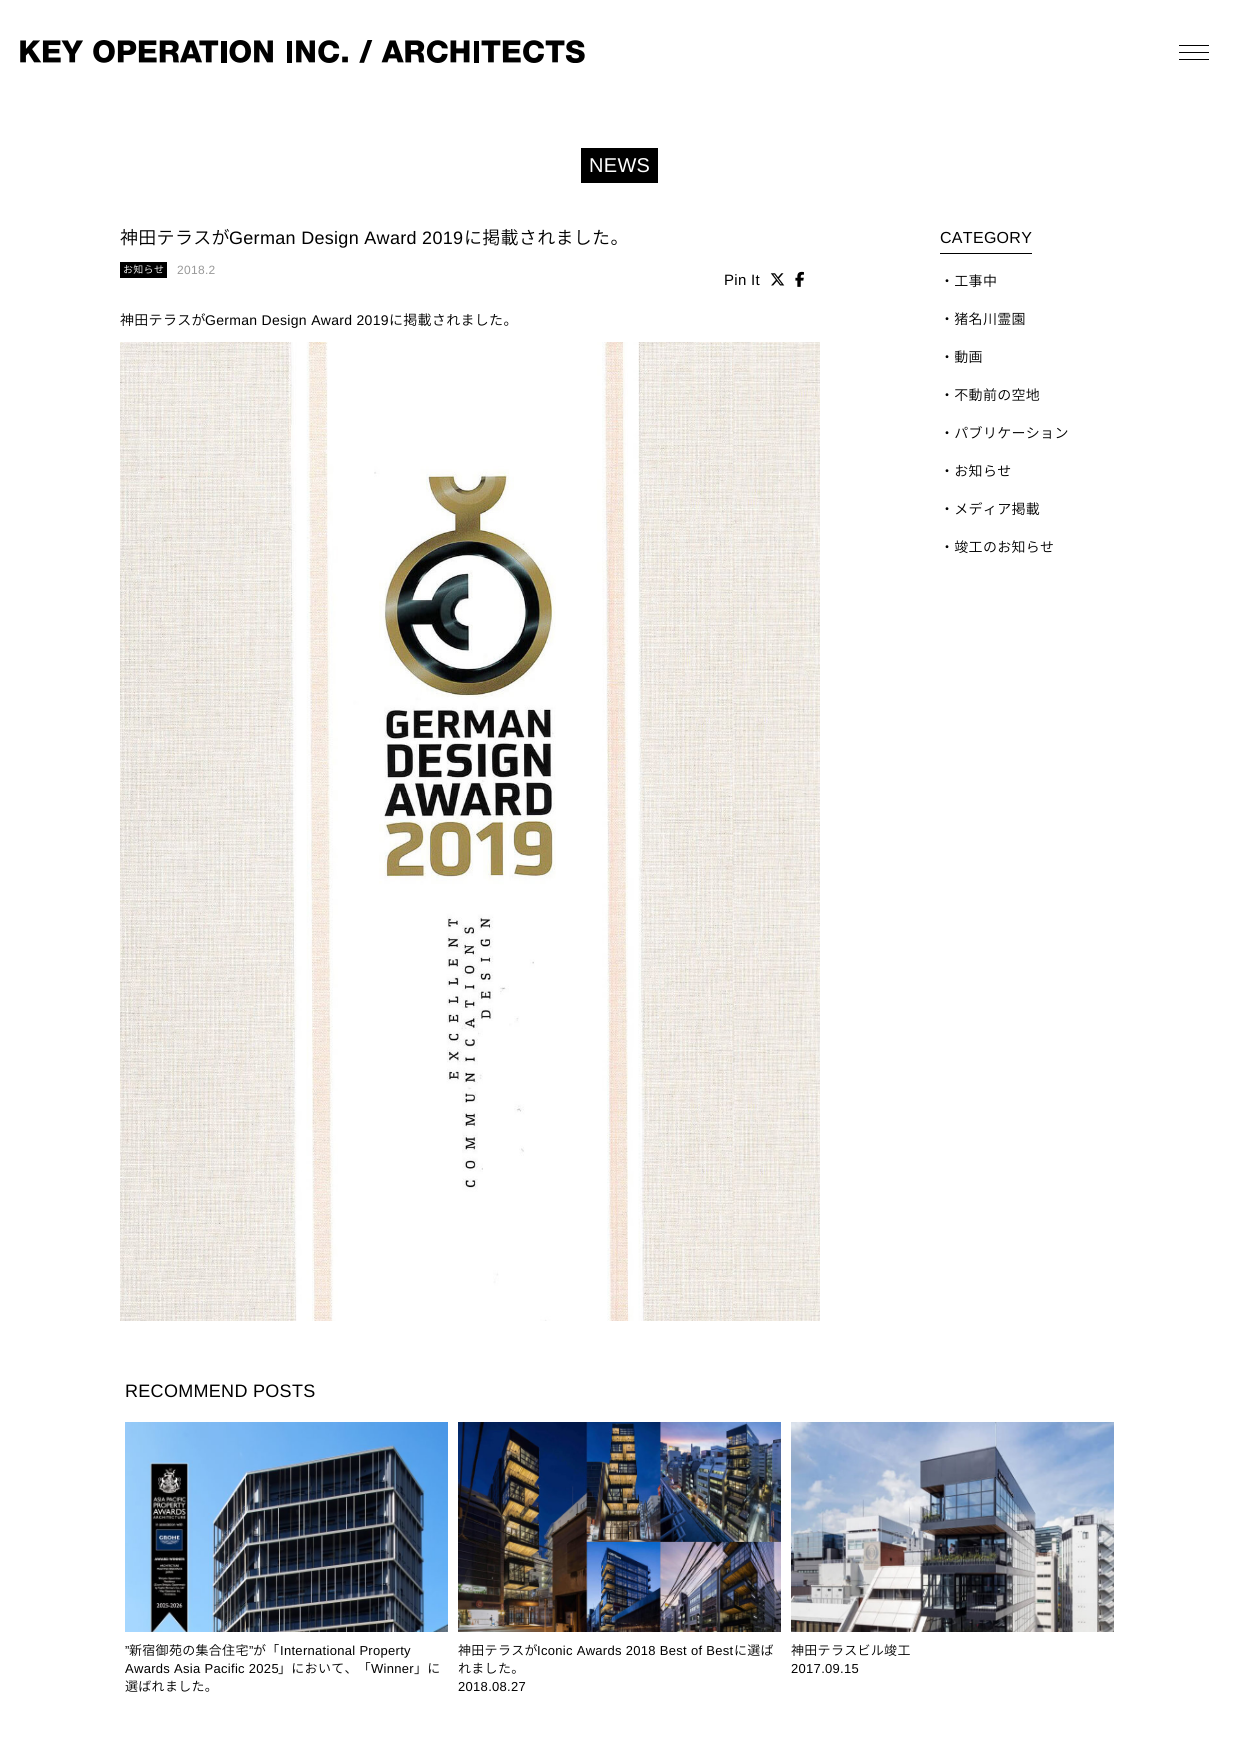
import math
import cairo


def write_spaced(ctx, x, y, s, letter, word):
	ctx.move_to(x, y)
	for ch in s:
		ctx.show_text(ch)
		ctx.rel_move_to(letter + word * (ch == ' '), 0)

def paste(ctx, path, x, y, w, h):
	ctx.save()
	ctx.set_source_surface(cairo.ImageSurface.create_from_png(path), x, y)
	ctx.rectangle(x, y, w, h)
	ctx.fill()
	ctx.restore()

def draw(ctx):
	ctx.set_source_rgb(1, 1, 1)
	ctx.paint()
	paste(ctx, 'media/1.png', 20, 40, 565, 23)
	ctx.set_source_rgb(0, 0, 0)
	ctx.rectangle(1179, 45, 30, 1)
	ctx.rectangle(1179, 52, 30, 1)
	ctx.rectangle(1179, 59, 30, 1)
	ctx.rectangle(581, 148, 77, 35)
	ctx.fill()
	ctx.select_font_face('Liberation Sans')
	ctx.set_font_size(20)
	ctx.set_source_rgb(1, 1, 1)
	write_spaced(ctx, 589, 172, 'NEWS', 0.3, 0)
	ctx.select_font_face('Noto Sans JP Light')
	ctx.set_font_size(18)
	ctx.set_source_rgb(0, 0, 0)
	write_spaced(ctx, 120, 244, '神田テラスが', 0.3, 0)
	ctx.select_font_face('Liberation Sans')
	write_spaced(ctx, 229, 244, 'German Design Award 2019', 0.3, 0)
	ctx.select_font_face('Noto Sans JP Light')
	write_spaced(ctx, 464, 244, 'に掲載されました。', 0.3, 0)
	ctx.rectangle(120, 262, 47, 16)
	ctx.fill()
	ctx.set_font_size(10)
	ctx.set_source_rgb(1, 1, 1)
	write_spaced(ctx, 123, 273, 'お知らせ', 0.3, 0)
	ctx.select_font_face('Liberation Sans')
	ctx.set_font_size(12)
	ctx.set_source_rgb(0.6, 0.6, 0.6)
	write_spaced(ctx, 177, 274, '2018.2', 0.3, 0)
	ctx.set_font_size(15)
	ctx.set_source_rgb(0, 0, 0)
	write_spaced(ctx, 724, 285, 'Pin It', 0.3, 0)
	paste(ctx, 'media/2.png', 770, 273, 15, 13)
	paste(ctx, 'media/3.png', 795, 271, 9, 16)
	ctx.select_font_face('Noto Sans JP Light')
	ctx.set_font_size(14)
	write_spaced(ctx, 120, 325, '神田テラスが', 0.3, 0)
	ctx.select_font_face('Liberation Sans')
	write_spaced(ctx, 205, 325, 'German Design Award 2019', 0.3, 0)
	ctx.select_font_face('Noto Sans JP Light')
	write_spaced(ctx, 389, 325, 'に掲載されました。', 0.3, 0)
	paste(ctx, 'media/4.png', 120, 342, 700, 979)
	ctx.rectangle(940, 253, 92, 1)
	ctx.fill()
	ctx.select_font_face('Liberation Sans')
	ctx.set_font_size(16)
	write_spaced(ctx, 940, 243, 'CATEGORY', 0.3, 0)
	ctx.select_font_face('Noto Sans JP Light')
	ctx.set_font_size(14)
	for x, y, s in [
		(940, 286, '・工事中'),
		(940, 324, '・猪名川霊園'),
		(940, 362, '・動画'),
		(940, 400, '・不動前の空地'),
		(940, 438, '・パブリケーション'),
		(940, 476, '・お知らせ'),
		(940, 514, '・メディア掲載'),
		(940, 552, '・竣工のお知らせ'),
	]:
		write_spaced(ctx, x, y, s, 0.3, 0)
	ctx.select_font_face('Liberation Sans')
	ctx.set_font_size(18)
	write_spaced(ctx, 125, 1397, 'RECOMMEND POSTS', 0.3, 0)
	paste(ctx, 'media/5.png', 125, 1422, 323, 210)
	ctx.set_font_size(13)
	write_spaced(ctx, 125, 1655, '”', 0.3, 0)
	ctx.select_font_face('Noto Sans JP Light')
	write_spaced(ctx, 129, 1655, '新宿御苑の集合住宅', 0.3, 0)
	ctx.select_font_face('Liberation Sans')
	write_spaced(ctx, 249, 1655, '”', 0.3, 0)
	ctx.select_font_face('Noto Sans JP Light')
	write_spaced(ctx, 253, 1655, 'が「', 0.3, 0)
	ctx.select_font_face('Liberation Sans')
	write_spaced(ctx, 280, 1655, 'International Property', 0.3, 0)
	write_spaced(ctx, 125, 1673, 'Awards Asia Pacific 2025', 0.3, 0)
	ctx.select_font_face('Noto Sans JP Light')
	write_spaced(ctx, 278, 1673, '」において、「', 0.3, 0)
	ctx.select_font_face('Liberation Sans')
	write_spaced(ctx, 371, 1673, 'Winner', 0.3, 0)
	ctx.select_font_face('Noto Sans JP Light')
	write_spaced(ctx, 414, 1673, '」に', 0.3, 0)
	write_spaced(ctx, 125, 1691, '選ばれました。', 0.3, 0)
	paste(ctx, 'media/6.png', 458, 1422, 323, 210)
	write_spaced(ctx, 458, 1655, '神田テラスが', 0.3, 0)
	ctx.select_font_face('Liberation Sans')
	write_spaced(ctx, 537, 1655, 'Iconic Awards 2018 Best of Best', 0.3, 0)
	ctx.select_font_face('Noto Sans JP Light')
	write_spaced(ctx, 734, 1655, 'に選ば', 0.3, 0)
	write_spaced(ctx, 458, 1673, 'れました。', 0.3, 0)
	ctx.select_font_face('Liberation Sans')
	write_spaced(ctx, 458, 1691, '2018.08.27', 0.3, 0)
	paste(ctx, 'media/7.png', 791, 1422, 323, 210)
	ctx.select_font_face('Noto Sans JP Light')
	write_spaced(ctx, 791, 1655, '神田テラスビル竣工', 0.3, 0)
	ctx.select_font_face('Liberation Sans')
	write_spaced(ctx, 791, 1673, '2017.09.15', 0.3, 0)


surface = cairo.ImageSurface(cairo.FORMAT_RGB24, 1239, 1738)
ctx = cairo.Context(surface)
options = cairo.FontOptions()
options.set_hint_metrics(cairo.HINT_METRICS_OFF)
options.set_hint_style(cairo.HINT_STYLE_NONE)
ctx.set_font_options(options)
ctx.set_miter_limit(4)
draw(ctx)
surface.write_to_png('image.png')
